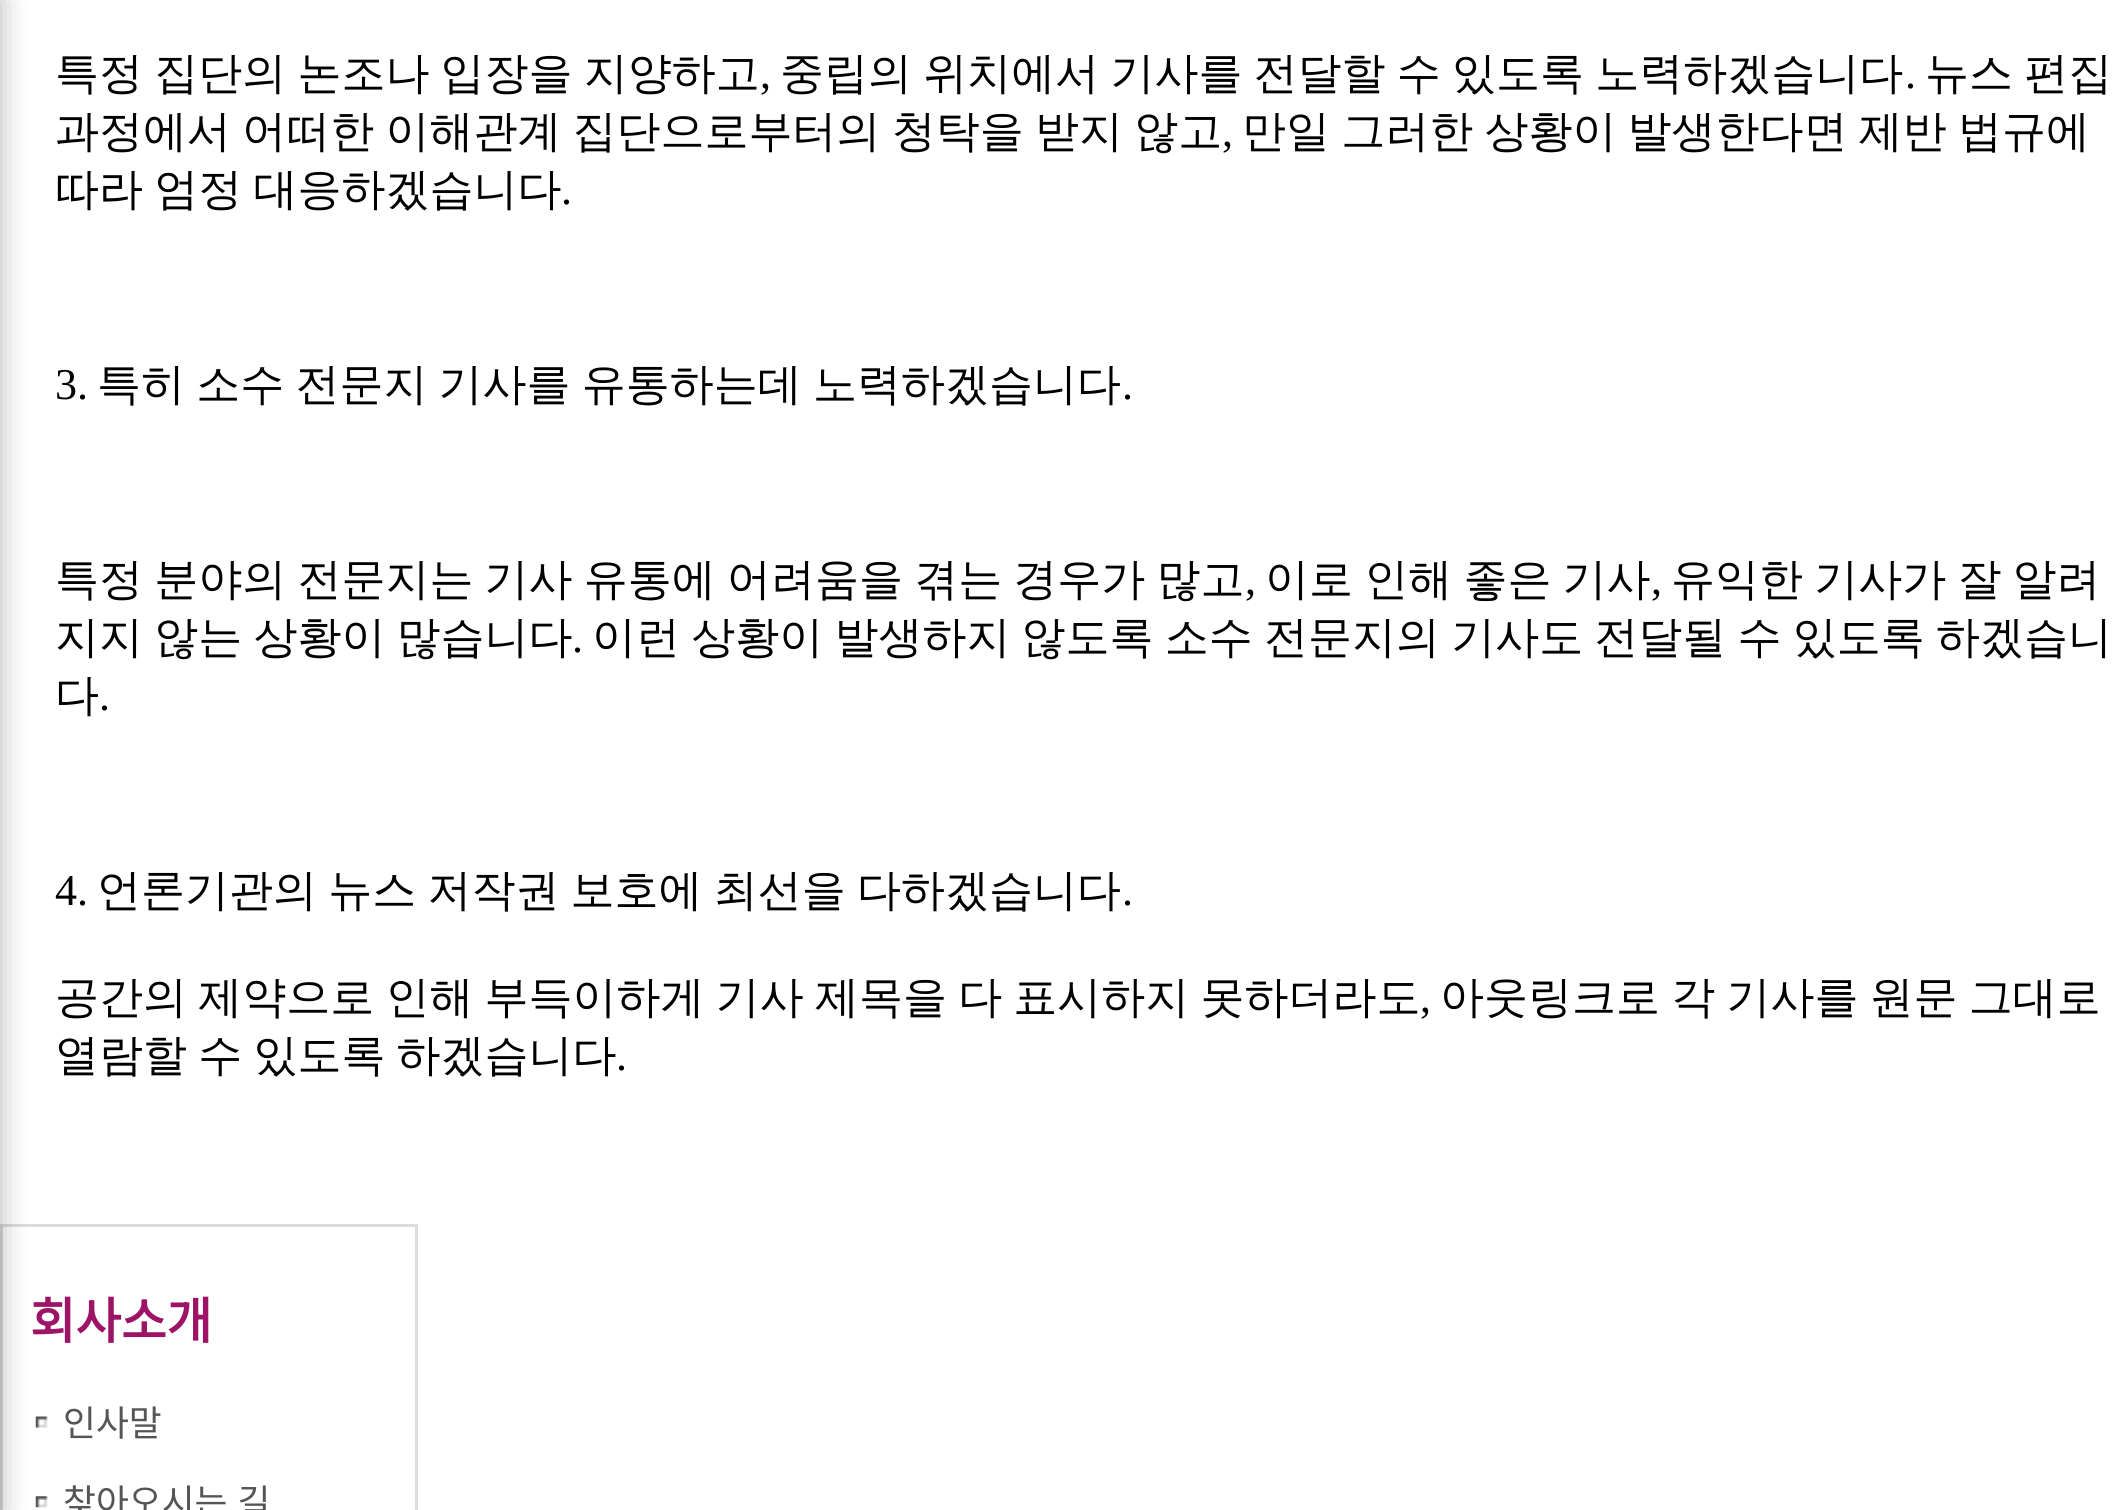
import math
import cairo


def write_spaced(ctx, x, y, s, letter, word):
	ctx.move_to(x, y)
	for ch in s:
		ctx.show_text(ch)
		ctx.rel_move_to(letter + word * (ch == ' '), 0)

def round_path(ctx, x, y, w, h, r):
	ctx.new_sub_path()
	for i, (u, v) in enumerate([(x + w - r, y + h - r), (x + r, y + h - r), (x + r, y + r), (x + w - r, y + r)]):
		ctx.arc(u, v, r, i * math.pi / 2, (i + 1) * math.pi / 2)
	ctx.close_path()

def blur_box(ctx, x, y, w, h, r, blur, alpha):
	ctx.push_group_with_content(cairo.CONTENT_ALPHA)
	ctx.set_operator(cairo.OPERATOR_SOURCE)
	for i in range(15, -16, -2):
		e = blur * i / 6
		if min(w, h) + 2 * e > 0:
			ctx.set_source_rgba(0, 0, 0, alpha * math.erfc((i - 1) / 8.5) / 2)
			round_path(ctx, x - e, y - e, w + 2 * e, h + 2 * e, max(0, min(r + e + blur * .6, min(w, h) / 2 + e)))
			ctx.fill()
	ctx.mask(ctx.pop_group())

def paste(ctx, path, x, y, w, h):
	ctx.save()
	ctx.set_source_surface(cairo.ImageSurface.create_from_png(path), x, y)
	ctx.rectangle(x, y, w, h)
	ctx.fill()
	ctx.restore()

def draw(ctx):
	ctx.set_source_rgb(1, 1, 1)
	ctx.paint()
	ctx.rectangle(1.5, 1225.5, 415, 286)
	ctx.set_source_rgb(0.863, 0.863, 0.863)
	ctx.set_line_width(3)
	ctx.stroke()
	paste(ctx, 'media/1.png', 35, 1416, 13, 12)
	paste(ctx, 'media/2.png', 35, 1496, 13, 12)
	ctx.set_source_rgb(0, 0, 0)
	blur_box(ctx, -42, 0, 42, 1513, 0, 14, 0.3)
	ctx.select_font_face('WenQuanYi Zen Hei Medium')
	ctx.set_font_size(44)
	ctx.set_source_rgb(0, 0, 0)
	write_spaced(ctx, 55, 88, '특정 집단의 논조나 입장을 지양하고', 0, -2)
	ctx.select_font_face('Liberation Serif')
	ctx.move_to(760, 88)
	ctx.show_text(',')
	ctx.select_font_face('WenQuanYi Zen Hei Medium')
	write_spaced(ctx, 780, 88, '중립의 위치에서 기사를 전달할 수 있도록 노력하겠습니다', 0, -2)
	ctx.select_font_face('Liberation Serif')
	ctx.move_to(1905, 88)
	ctx.show_text('.')
	ctx.select_font_face('WenQuanYi Zen Hei Medium')
	write_spaced(ctx, 1925, 88, '뉴스 편집', 0, -2)
	write_spaced(ctx, 55, 146, '과정에서 어떠한 이해관계 집단으로부터의 청탁을 받지 않고', 0, -2)
	ctx.select_font_face('Liberation Serif')
	ctx.move_to(1222, 146)
	ctx.show_text(',')
	ctx.select_font_face('WenQuanYi Zen Hei Medium')
	write_spaced(ctx, 1242, 146, '만일 그러한 상황이 발생한다면 제반 법규에', 0, -2)
	write_spaced(ctx, 55, 204, '따라 엄정 대응하겠습니다', 0, -2)
	ctx.select_font_face('Liberation Serif')
	ctx.move_to(561, 204)
	ctx.show_text('.')
	ctx.move_to(55, 399)
	ctx.show_text('3.')
	ctx.select_font_face('WenQuanYi Zen Hei Medium')
	write_spaced(ctx, 97, 399, '특히 소수 전문지 기사를 유통하는데 노력하겠습니다', 0, -2)
	ctx.select_font_face('Liberation Serif')
	ctx.move_to(1122, 399)
	ctx.show_text('.')
	ctx.select_font_face('WenQuanYi Zen Hei Medium')
	write_spaced(ctx, 55, 594, '특정 분야의 전문지는 기사 유통에 어려움을 겪는 경우가 많고', 0, -2)
	ctx.select_font_face('Liberation Serif')
	ctx.move_to(1245, 594)
	ctx.show_text(',')
	ctx.select_font_face('WenQuanYi Zen Hei Medium')
	write_spaced(ctx, 1265, 594, '이로 인해 좋은 기사', 0, -2)
	ctx.select_font_face('Liberation Serif')
	ctx.move_to(1651, 594)
	ctx.show_text(',')
	ctx.select_font_face('WenQuanYi Zen Hei Medium')
	write_spaced(ctx, 1671, 594, '유익한 기사가 잘 알려', 0, -2)
	write_spaced(ctx, 55, 652, '지지 않는 상황이 많습니다', 0, -2)
	ctx.select_font_face('Liberation Serif')
	ctx.move_to(572, 652)
	ctx.show_text('.')
	ctx.select_font_face('WenQuanYi Zen Hei Medium')
	write_spaced(ctx, 592, 652, '이런 상황이 발생하지 않도록 소수 전문지의 기사도 전달될 수 있도록 하겠습니', 0, -2)
	ctx.move_to(55, 710)
	ctx.show_text('다')
	ctx.select_font_face('Liberation Serif')
	ctx.move_to(99, 710)
	ctx.show_text('.')
	ctx.move_to(55, 905)
	ctx.show_text('4.')
	ctx.select_font_face('WenQuanYi Zen Hei Medium')
	write_spaced(ctx, 97, 905, '언론기관의 뉴스 저작권 보호에 최선을 다하겠습니다', 0, -2)
	ctx.select_font_face('Liberation Serif')
	ctx.move_to(1122, 905)
	ctx.show_text('.')
	ctx.select_font_face('WenQuanYi Zen Hei Medium')
	write_spaced(ctx, 55, 1012, '공간의 제약으로 인해 부득이하게 기사 제목을 다 표시하지 못하더라도', 0, -2)
	ctx.select_font_face('Liberation Serif')
	ctx.move_to(1420, 1012)
	ctx.show_text(',')
	ctx.select_font_face('WenQuanYi Zen Hei Medium')
	write_spaced(ctx, 1440, 1012, '아웃링크로 각 기사를 원문 그대로', 0, -2)
	write_spaced(ctx, 55, 1070, '열람할 수 있도록 하겠습니다', 0, -2)
	ctx.select_font_face('Liberation Serif')
	ctx.move_to(616, 1070)
	ctx.show_text('.')
	ctx.select_font_face('Noto Sans KR', cairo.FONT_SLANT_NORMAL, cairo.FONT_WEIGHT_BOLD)
	ctx.set_font_size(49.5)
	ctx.set_source_rgb(0.616, 0.075, 0.4)
	ctx.move_to(30, 1339)
	ctx.show_text('회사소개')
	ctx.select_font_face('Noto Sans KR Thin')
	ctx.set_font_size(35.75)
	ctx.set_source_rgb(0.333, 0.333, 0.333)
	ctx.move_to(63, 1436)
	ctx.show_text('인사말')
	write_spaced(ctx, 63, 1515, '찾아오시는 길', 0, 2)


surface = cairo.ImageSurface(cairo.FORMAT_RGB24, 2115, 1510)
ctx = cairo.Context(surface)
options = cairo.FontOptions()
options.set_hint_metrics(cairo.HINT_METRICS_OFF)
options.set_hint_style(cairo.HINT_STYLE_NONE)
ctx.set_font_options(options)
ctx.set_miter_limit(4)
draw(ctx)
surface.write_to_png('image.png')
